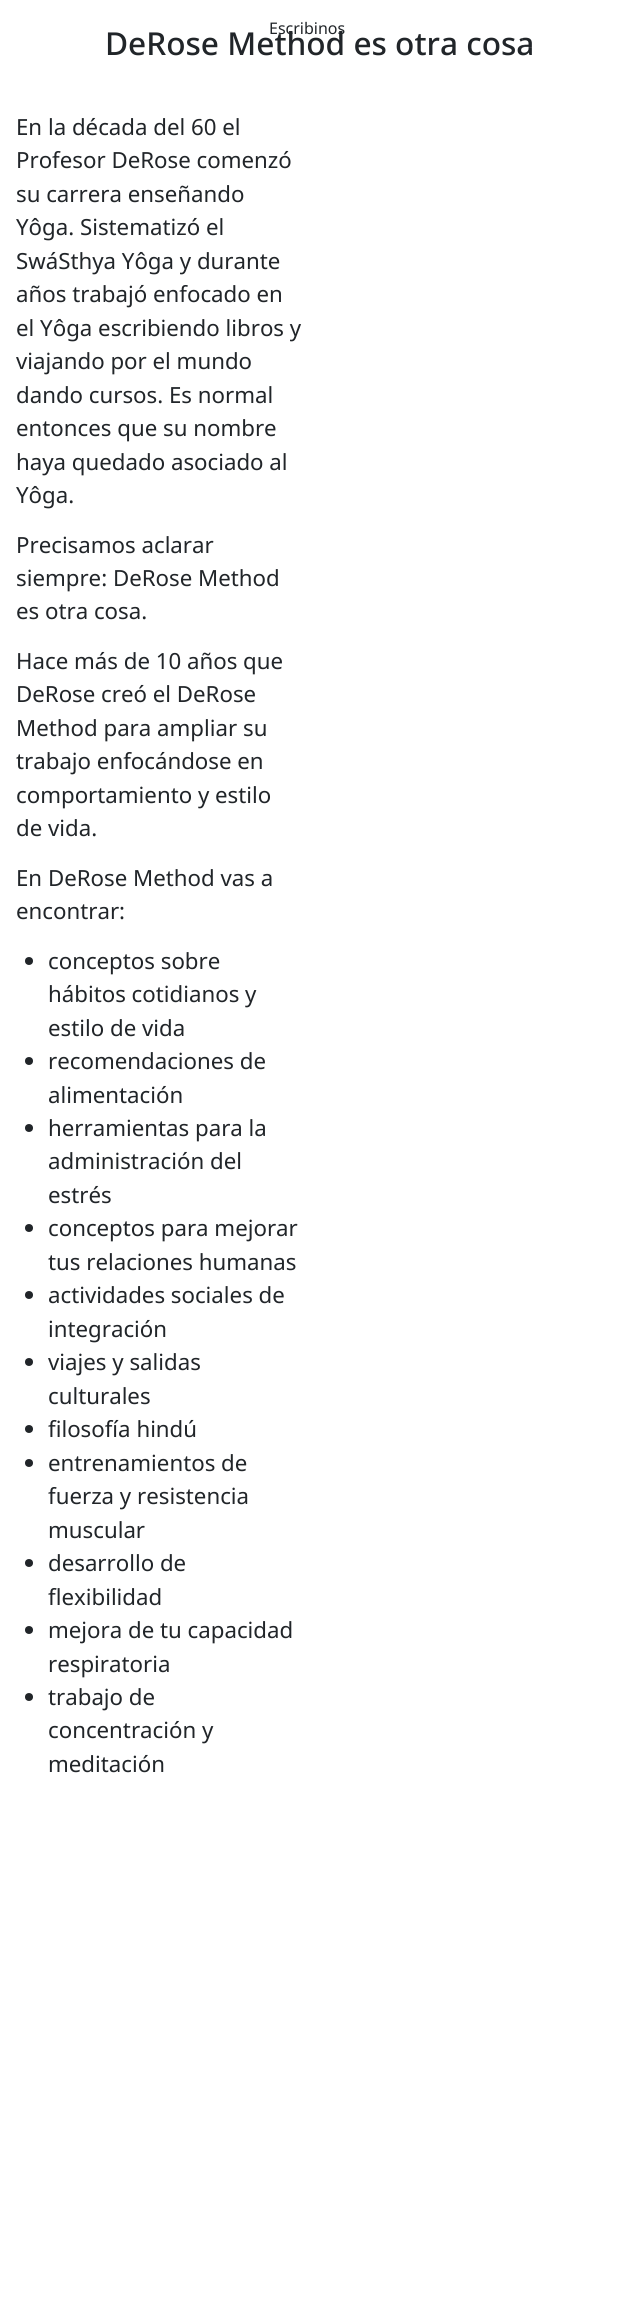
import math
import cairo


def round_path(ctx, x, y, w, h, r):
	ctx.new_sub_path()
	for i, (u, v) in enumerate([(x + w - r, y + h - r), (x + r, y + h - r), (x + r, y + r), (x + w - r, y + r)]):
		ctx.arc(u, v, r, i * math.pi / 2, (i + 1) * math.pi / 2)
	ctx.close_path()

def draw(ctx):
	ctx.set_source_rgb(1, 1, 1)
	ctx.paint()
	ctx.select_font_face('Noto Sans')
	ctx.set_font_size(16)
	ctx.set_source_rgb(0.129, 0.145, 0.161)
	ctx.move_to(269, 34)
	ctx.show_text('Escribinos')
	ctx.select_font_face('Noto Sans Medium')
	ctx.set_font_size(31.6)
	ctx.move_to(105, 55)
	ctx.show_text('DeRose Method es otra cosa')
	round_path(ctx, 522.5, 8.5, 55, 39, 5.5)
	ctx.set_source_rgba(1, 1, 1, 0.1)
	ctx.set_line_width(1)
	ctx.stroke()
	ctx.select_font_face('Noto Sans')
	ctx.set_font_size(22.25)
	ctx.set_source_rgb(0.129, 0.145, 0.161)
	for x, y, s in [
		(16, 135, 'En la década del 60 el'),
		(16, 168, 'Profesor DeRose comenzó'),
		(16, 202, 'su carrera enseñando'),
		(16, 235, 'Yôga. Sistematizó el'),
		(16, 269, 'SwáSthya Yôga y durante'),
		(16, 302, 'años trabajó enfocado en'),
		(16, 336, 'el Yôga escribiendo libros y'),
		(16, 369, 'viajando por el mundo'),
		(16, 403, 'dando cursos. Es normal'),
		(16, 436, 'entonces que su nombre'),
		(16, 470, 'haya quedado asociado al'),
		(16, 503, 'Yôga.'),
		(16, 553, 'Precisamos aclarar'),
		(16, 586, 'siempre: DeRose Method'),
		(16, 619, 'es otra cosa.'),
		(16, 669, 'Hace más de 10 años que'),
		(16, 702, 'DeRose creó el DeRose'),
		(16, 736, 'Method para ampliar su'),
		(16, 769, 'trabajo enfocándose en'),
		(16, 803, 'comportamiento y estilo'),
		(16, 836, 'de vida.'),
		(16, 886, 'En DeRose Method vas a'),
		(16, 919, 'encontrar:'),
	]:
		ctx.move_to(x, y)
		ctx.show_text(s)
	ctx.new_path()
	ctx.arc(29, 961, 4, 0, 2 * math.pi)
	ctx.fill()
	for x, y, s in [
		(48, 969, 'conceptos sobre'),
		(48, 1002, 'hábitos cotidianos y'),
		(48, 1036, 'estilo de vida'),
	]:
		ctx.move_to(x, y)
		ctx.show_text(s)
	ctx.new_path()
	ctx.arc(29, 1061, 4, 0, 2 * math.pi)
	ctx.fill()
	ctx.move_to(48, 1069)
	ctx.show_text('recomendaciones de')
	ctx.move_to(48, 1103)
	ctx.show_text('alimentación')
	ctx.new_path()
	ctx.arc(29, 1128, 4, 0, 2 * math.pi)
	ctx.fill()
	for x, y, s in [
		(48, 1136, 'herramientas para la'),
		(48, 1169, 'administración del'),
		(48, 1203, 'estrés'),
	]:
		ctx.move_to(x, y)
		ctx.show_text(s)
	ctx.new_path()
	ctx.arc(29, 1228, 4, 0, 2 * math.pi)
	ctx.fill()
	ctx.move_to(48, 1236)
	ctx.show_text('conceptos para mejorar')
	ctx.move_to(48, 1270)
	ctx.show_text('tus relaciones humanas')
	ctx.new_path()
	ctx.arc(29, 1295, 4, 0, 2 * math.pi)
	ctx.fill()
	ctx.move_to(48, 1303)
	ctx.show_text('actividades sociales de')
	ctx.move_to(48, 1337)
	ctx.show_text('integración')
	ctx.new_path()
	ctx.arc(29, 1362, 4, 0, 2 * math.pi)
	ctx.fill()
	ctx.move_to(48, 1370)
	ctx.show_text('viajes y salidas')
	ctx.move_to(48, 1404)
	ctx.show_text('culturales')
	ctx.new_path()
	ctx.arc(29, 1429, 4, 0, 2 * math.pi)
	ctx.fill()
	ctx.move_to(48, 1437)
	ctx.show_text('filosofía hindú')
	ctx.new_path()
	ctx.arc(29, 1463, 4, 0, 2 * math.pi)
	ctx.fill()
	for x, y, s in [
		(48, 1471, 'entrenamientos de'),
		(48, 1504, 'fuerza y resistencia'),
		(48, 1538, 'muscular'),
	]:
		ctx.move_to(x, y)
		ctx.show_text(s)
	ctx.new_path()
	ctx.arc(29, 1563, 4, 0, 2 * math.pi)
	ctx.fill()
	ctx.move_to(48, 1571)
	ctx.show_text('desarrollo de')
	ctx.move_to(48, 1605)
	ctx.show_text('flexibilidad')
	ctx.new_path()
	ctx.arc(29, 1630, 4, 0, 2 * math.pi)
	ctx.fill()
	ctx.move_to(48, 1638)
	ctx.show_text('mejora de tu capacidad')
	ctx.move_to(48, 1672)
	ctx.show_text('respiratoria')
	ctx.new_path()
	ctx.arc(29, 1697, 4, 0, 2 * math.pi)
	ctx.fill()
	for x, y, s in [
		(48, 1705, 'trabajo de'),
		(48, 1738, 'concentración y'),
		(48, 1772, 'meditación'),
	]:
		ctx.move_to(x, y)
		ctx.show_text(s)


surface = cairo.ImageSurface(cairo.FORMAT_RGB24, 639, 2317)
ctx = cairo.Context(surface)
options = cairo.FontOptions()
options.set_hint_metrics(cairo.HINT_METRICS_OFF)
options.set_hint_style(cairo.HINT_STYLE_NONE)
ctx.set_font_options(options)
ctx.set_miter_limit(4)
draw(ctx)
surface.write_to_png('image.png')
